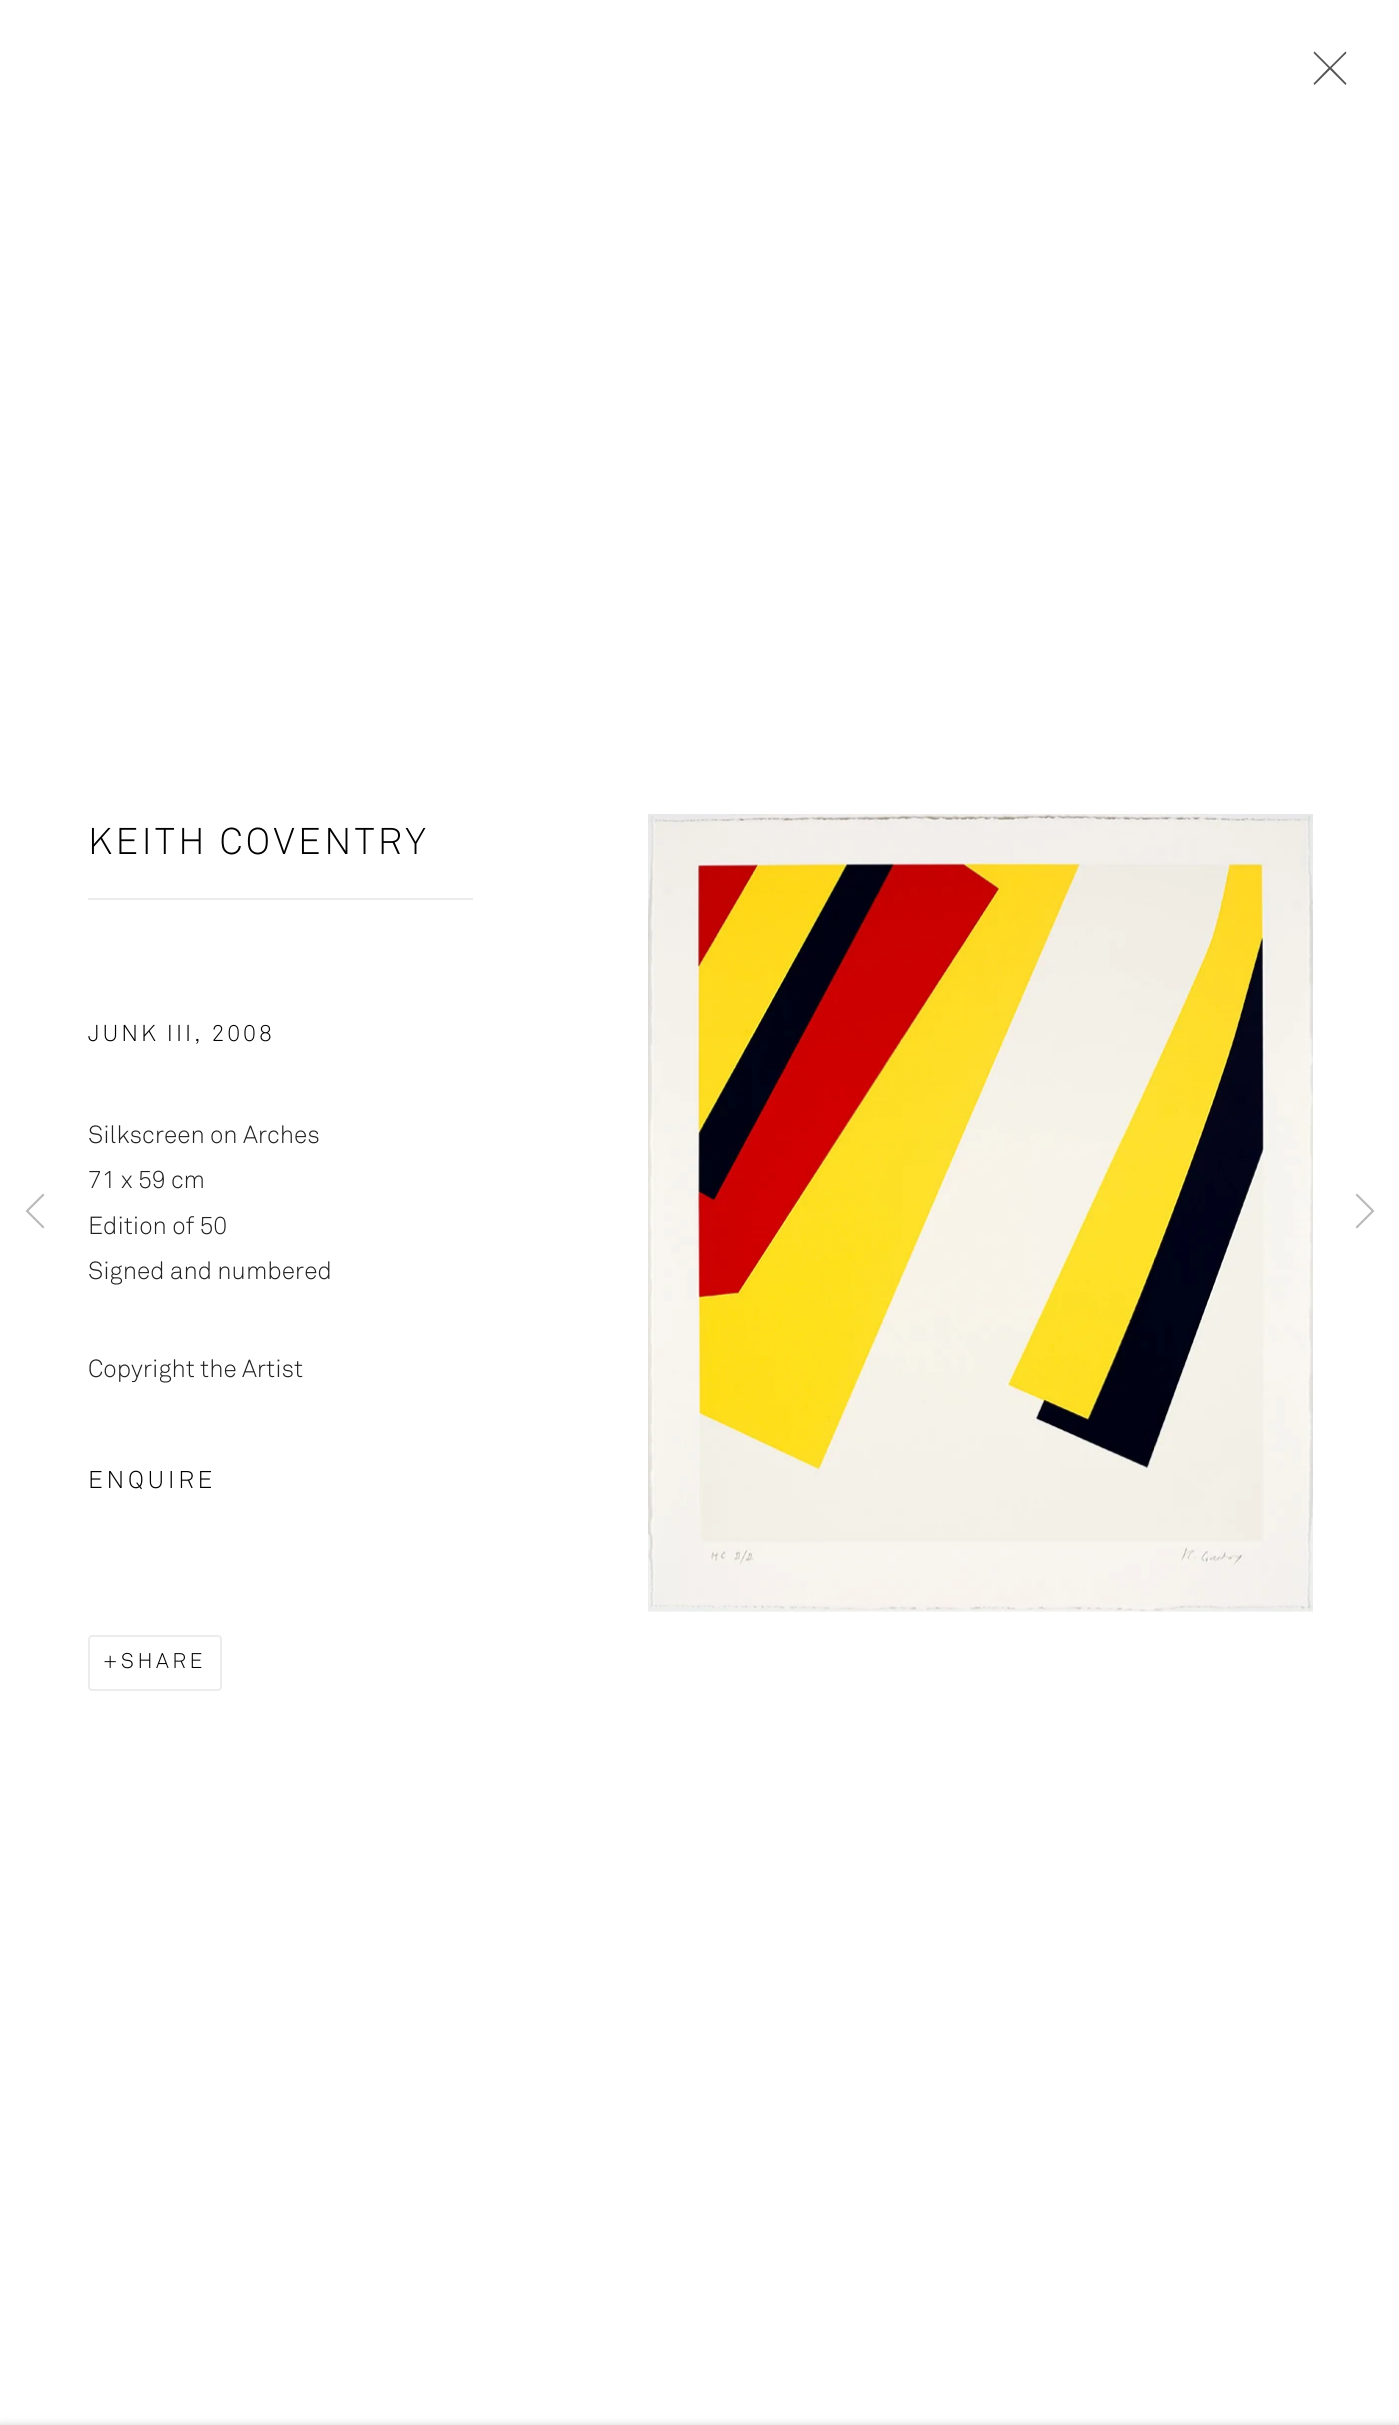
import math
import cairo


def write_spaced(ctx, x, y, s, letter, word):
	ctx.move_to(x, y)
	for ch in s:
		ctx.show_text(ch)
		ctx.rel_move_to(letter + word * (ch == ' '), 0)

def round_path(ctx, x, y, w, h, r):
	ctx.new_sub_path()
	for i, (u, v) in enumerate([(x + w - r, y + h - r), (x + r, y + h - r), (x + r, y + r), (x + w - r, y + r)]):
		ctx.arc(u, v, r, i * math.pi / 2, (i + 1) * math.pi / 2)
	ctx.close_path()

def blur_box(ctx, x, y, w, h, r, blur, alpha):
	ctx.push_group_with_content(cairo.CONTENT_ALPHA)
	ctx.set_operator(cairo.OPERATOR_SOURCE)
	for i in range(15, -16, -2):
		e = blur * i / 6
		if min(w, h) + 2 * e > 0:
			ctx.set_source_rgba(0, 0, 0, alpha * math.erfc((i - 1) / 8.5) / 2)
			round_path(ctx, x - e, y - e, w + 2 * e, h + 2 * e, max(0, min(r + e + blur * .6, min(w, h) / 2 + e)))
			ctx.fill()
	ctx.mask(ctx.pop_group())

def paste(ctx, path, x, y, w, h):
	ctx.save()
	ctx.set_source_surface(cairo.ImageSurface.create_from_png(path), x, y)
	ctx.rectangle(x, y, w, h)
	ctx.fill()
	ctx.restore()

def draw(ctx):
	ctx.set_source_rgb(1, 1, 1)
	ctx.paint()
	ctx.set_source_rgb(0.333, 0.333, 0.333)
	ctx.new_path()
	ctx.move_to(1346.5, 53)
	ctx.line_to(1345.5, 51.5)
	ctx.line_to(1330, 67)
	ctx.line_to(1314.5, 51.5)
	ctx.line_to(1313.5, 53)
	ctx.line_to(1328.5, 68)
	ctx.line_to(1313.5, 83.5)
	ctx.line_to(1314.5, 85)
	ctx.line_to(1330, 69.5)
	ctx.line_to(1345.5, 85)
	ctx.line_to(1346.5, 83.5)
	ctx.line_to(1331.5, 68)
	ctx.close_path()
	ctx.fill()
	ctx.set_source_rgb(0.922, 0.922, 0.922)
	ctx.rectangle(88, 898, 385, 2)
	ctx.fill()
	ctx.select_font_face('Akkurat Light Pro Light')
	ctx.set_font_size(36.75)
	ctx.set_source_rgb(0, 0, 0)
	write_spaced(ctx, 88, 854, 'KEITH COVENTRY', 3.5, 0)
	ctx.set_font_size(22.75)
	write_spaced(ctx, 88, 1041, 'JUNK III, 2008', 3, 0)
	ctx.set_font_size(24.5)
	ctx.set_source_rgb(0.133, 0.133, 0.133)
	for x, y, s in [
		(88, 1143, 'Silkscreen on Arches'),
		(88, 1188, '71 x 59 cm'),
		(88, 1234, 'Edition of 50'),
		(88, 1279, 'Signed and numbered'),
		(88, 1377, 'Copyright the Artist'),
	]:
		ctx.move_to(x, y)
		ctx.show_text(s)
	ctx.set_font_size(24)
	ctx.set_source_rgb(0, 0, 0)
	write_spaced(ctx, 88, 1488, 'ENQUIRE', 3.75, 0)
	round_path(ctx, 89, 1636, 132, 54, 3)
	ctx.set_source_rgb(0.922, 0.922, 0.922)
	ctx.stroke()
	ctx.set_font_size(21)
	ctx.set_source_rgb(0, 0, 0)
	write_spaced(ctx, 103, 1668, '+SHARE', 3.5, 0)
	paste(ctx, 'media/1.png', 648, 814, 665, 798)
	ctx.set_source_rgb(0.725, 0.725, 0.725)
	ctx.new_path()
	ctx.move_to(27, 1212.5)
	ctx.line_to(43, 1228.5)
	ctx.line_to(44.5, 1227)
	ctx.line_to(28.5, 1211)
	ctx.line_to(44.5, 1195)
	ctx.line_to(43, 1193.5)
	ctx.line_to(25.5, 1211)
	ctx.close_path()
	ctx.fill()
	ctx.new_path()
	ctx.move_to(1374.5, 1211)
	ctx.line_to(1357, 1193.5)
	ctx.line_to(1355.5, 1195)
	ctx.line_to(1371.5, 1211)
	ctx.line_to(1355.5, 1227)
	ctx.line_to(1357, 1228.5)
	ctx.close_path()
	ctx.fill()
	ctx.set_source_rgb(0, 0, 0)
	blur_box(ctx, 0, 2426, 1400, 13, 0, 4.5, 0.23)


surface = cairo.ImageSurface(cairo.FORMAT_RGB24, 1399, 2425)
ctx = cairo.Context(surface)
options = cairo.FontOptions()
options.set_hint_metrics(cairo.HINT_METRICS_OFF)
options.set_hint_style(cairo.HINT_STYLE_NONE)
ctx.set_font_options(options)
ctx.set_miter_limit(4)
draw(ctx)
surface.write_to_png('image.png')
